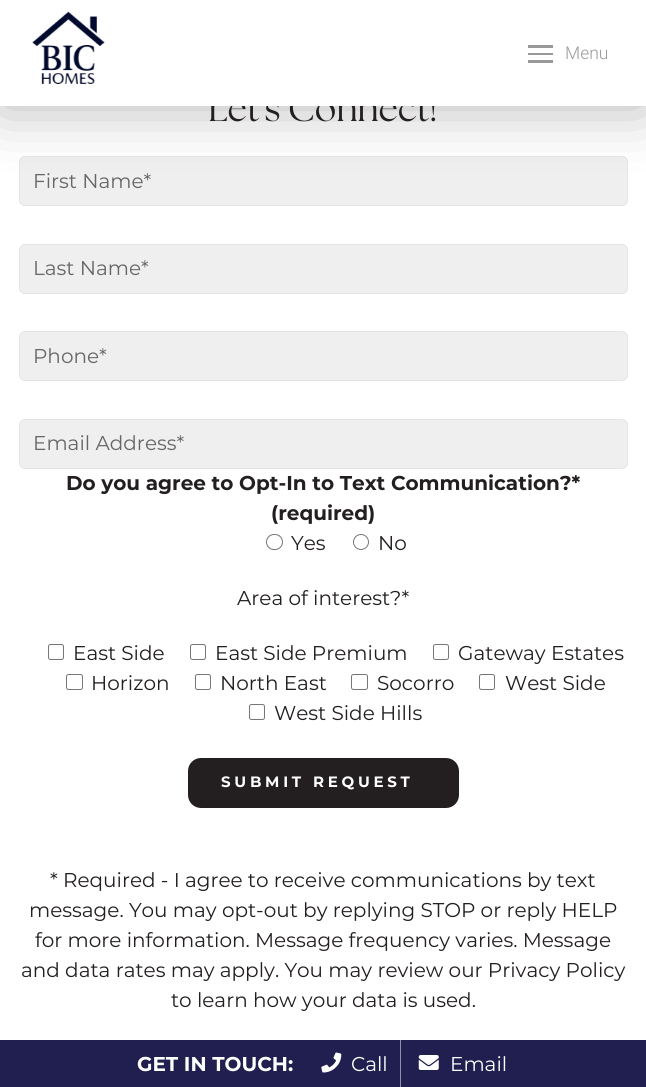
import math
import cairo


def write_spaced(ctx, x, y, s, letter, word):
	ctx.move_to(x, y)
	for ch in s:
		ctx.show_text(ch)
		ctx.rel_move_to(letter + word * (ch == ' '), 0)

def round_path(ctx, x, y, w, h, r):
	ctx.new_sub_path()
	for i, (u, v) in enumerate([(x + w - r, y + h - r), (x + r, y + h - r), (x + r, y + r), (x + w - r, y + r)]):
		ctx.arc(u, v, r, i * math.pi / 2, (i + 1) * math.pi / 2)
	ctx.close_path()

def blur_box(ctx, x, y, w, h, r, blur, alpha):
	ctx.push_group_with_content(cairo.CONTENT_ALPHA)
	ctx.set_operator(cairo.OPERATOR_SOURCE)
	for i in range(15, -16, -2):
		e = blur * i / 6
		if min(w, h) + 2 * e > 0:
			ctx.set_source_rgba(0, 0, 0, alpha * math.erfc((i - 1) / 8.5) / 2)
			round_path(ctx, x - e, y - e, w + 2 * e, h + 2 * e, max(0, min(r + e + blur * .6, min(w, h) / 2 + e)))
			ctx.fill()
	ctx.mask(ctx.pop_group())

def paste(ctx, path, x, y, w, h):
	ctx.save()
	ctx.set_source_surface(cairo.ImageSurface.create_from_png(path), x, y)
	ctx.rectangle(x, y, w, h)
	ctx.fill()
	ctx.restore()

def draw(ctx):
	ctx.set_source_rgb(1, 1, 1)
	ctx.paint()
	ctx.set_source_rgb(0.937, 0.937, 0.937)
	round_path(ctx, 19.5, 156.5, 608, 49, 5.5)
	ctx.fill_preserve()
	ctx.set_source_rgb(0.898, 0.898, 0.898)
	ctx.set_line_width(1)
	ctx.stroke()
	ctx.set_source_rgb(0, 0, 0)
	blur_box(ctx, 0, 0, 646, 106, 0, 31, 0.3)
	ctx.select_font_face('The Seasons')
	ctx.set_font_size(36)
	ctx.set_source_rgb(0.137, 0.122, 0.125)
	ctx.move_to(208, 121)
	ctx.show_text('Let\'s Connect!')
	ctx.set_source_rgb(1, 1, 1)
	ctx.rectangle(0, 0, 646, 106)
	ctx.fill()
	paste(ctx, 'media/1.png', 32, 11, 73, 73)
	ctx.set_source_rgb(0.6, 0.6, 0.6)
	ctx.rectangle(528, 45, 25, 3)
	ctx.rectangle(528, 53, 25, 2)
	ctx.rectangle(528, 60, 25, 3)
	ctx.fill()
	ctx.select_font_face('Roboto Light')
	ctx.set_font_size(17.5)
	ctx.move_to(565, 59)
	ctx.show_text('Menu')
	ctx.select_font_face('Montserrat')
	ctx.set_font_size(20)
	ctx.set_source_rgb(0.4, 0.4, 0.4)
	ctx.move_to(33, 188)
	ctx.show_text('First Name*')
	ctx.set_source_rgb(0.937, 0.937, 0.937)
	round_path(ctx, 19.5, 244.5, 608, 49, 5.5)
	ctx.fill_preserve()
	ctx.set_source_rgb(0.898, 0.898, 0.898)
	ctx.stroke()
	ctx.set_source_rgb(0.4, 0.4, 0.4)
	ctx.move_to(33, 275)
	ctx.show_text('Last Name*')
	ctx.set_source_rgb(0.937, 0.937, 0.937)
	round_path(ctx, 19.5, 331.5, 608, 49, 5.5)
	ctx.fill_preserve()
	ctx.set_source_rgb(0.898, 0.898, 0.898)
	ctx.stroke()
	ctx.set_source_rgb(0.4, 0.4, 0.4)
	ctx.move_to(33, 363)
	ctx.show_text('Phone*')
	ctx.set_source_rgb(0.937, 0.937, 0.937)
	round_path(ctx, 19.5, 419.5, 608, 49, 5.5)
	ctx.fill_preserve()
	ctx.set_source_rgb(0.898, 0.898, 0.898)
	ctx.stroke()
	ctx.set_source_rgb(0.4, 0.4, 0.4)
	ctx.move_to(33, 450)
	ctx.show_text('Email Address*')
	ctx.select_font_face('Montserrat', cairo.FONT_SLANT_NORMAL, cairo.FONT_WEIGHT_BOLD)
	ctx.set_source_rgb(0.137, 0.122, 0.125)
	ctx.move_to(66, 490)
	ctx.show_text('Do you agree to Opt-In to Text Communication?*')
	ctx.move_to(271, 520)
	ctx.show_text('(required)')
	round_path(ctx, 266.5, 534.5, 16, 15, 7.5)
	ctx.set_source_rgb(0.463, 0.463, 0.463)
	ctx.stroke()
	ctx.select_font_face('Montserrat')
	ctx.set_source_rgb(0.137, 0.122, 0.125)
	ctx.move_to(291, 550)
	ctx.show_text('Yes')
	ctx.new_path()
	ctx.arc(361, 542, 7.5, 0, 2 * math.pi)
	ctx.set_source_rgb(0.463, 0.463, 0.463)
	ctx.stroke()
	ctx.set_source_rgb(0.137, 0.122, 0.125)
	ctx.move_to(378, 550)
	ctx.show_text('No')
	ctx.move_to(237, 605)
	ctx.show_text('Area of interest?*')
	round_path(ctx, 48.5, 644.5, 15, 15, 2)
	ctx.set_source_rgb(0.463, 0.463, 0.463)
	ctx.stroke()
	ctx.set_source_rgb(0.137, 0.122, 0.125)
	ctx.move_to(73, 660)
	ctx.show_text('East Side')
	round_path(ctx, 190.5, 644.5, 15, 15, 2)
	ctx.set_source_rgb(0.463, 0.463, 0.463)
	ctx.stroke()
	ctx.set_source_rgb(0.137, 0.122, 0.125)
	ctx.move_to(215, 660)
	ctx.show_text('East Side Premium')
	round_path(ctx, 433.5, 644.5, 15, 15, 2)
	ctx.set_source_rgb(0.463, 0.463, 0.463)
	ctx.stroke()
	ctx.set_source_rgb(0.137, 0.122, 0.125)
	ctx.move_to(458, 660)
	ctx.show_text('Gateway Estates')
	round_path(ctx, 66.5, 674.5, 16, 15, 2)
	ctx.set_source_rgb(0.463, 0.463, 0.463)
	ctx.stroke()
	ctx.set_source_rgb(0.137, 0.122, 0.125)
	ctx.move_to(91, 690)
	ctx.show_text('Horizon')
	round_path(ctx, 195.5, 674.5, 15, 15, 2)
	ctx.set_source_rgb(0.463, 0.463, 0.463)
	ctx.stroke()
	ctx.set_source_rgb(0.137, 0.122, 0.125)
	ctx.move_to(220, 690)
	ctx.show_text('North East')
	round_path(ctx, 351.5, 674.5, 16, 15, 2)
	ctx.set_source_rgb(0.463, 0.463, 0.463)
	ctx.stroke()
	ctx.set_source_rgb(0.137, 0.122, 0.125)
	ctx.move_to(377, 690)
	ctx.show_text('Socorro')
	round_path(ctx, 479.5, 674.5, 15, 15, 2)
	ctx.set_source_rgb(0.463, 0.463, 0.463)
	ctx.stroke()
	ctx.set_source_rgb(0.137, 0.122, 0.125)
	ctx.move_to(505, 690)
	ctx.show_text('West Side')
	round_path(ctx, 249.5, 704.5, 15, 15, 2)
	ctx.set_source_rgb(0.463, 0.463, 0.463)
	ctx.stroke()
	ctx.set_source_rgb(0.137, 0.122, 0.125)
	ctx.move_to(274, 720)
	ctx.show_text('West Side Hills')
	round_path(ctx, 188, 758, 271, 50, 13)
	ctx.fill()
	ctx.select_font_face('Montserrat', cairo.FONT_SLANT_NORMAL, cairo.FONT_WEIGHT_BOLD)
	ctx.set_font_size(15)
	ctx.set_source_rgb(1, 1, 1)
	write_spaced(ctx, 221, 787, 'SUBMIT REQUEST', 3.75, 0)
	ctx.select_font_face('Montserrat')
	ctx.set_font_size(20)
	ctx.set_source_rgb(0.137, 0.122, 0.125)
	for x, y, s in [
		(50, 887, '* Required - I agree to receive communications by text'),
		(29, 917, 'message. You may opt-out by replying STOP or reply HELP'),
		(35, 947, 'for more information. Message frequency varies. Message'),
		(21, 977, 'and data rates may apply. You may review our Privacy Policy'),
		(171, 1007, 'to learn how your data is used.'),
	]:
		ctx.move_to(x, y)
		ctx.show_text(s)
	ctx.set_source_rgb(0.125, 0.122, 0.31)
	ctx.rectangle(0, 1040, 646, 47)
	ctx.fill()
	ctx.select_font_face('Montserrat', cairo.FONT_SLANT_NORMAL, cairo.FONT_WEIGHT_BOLD)
	ctx.set_source_rgb(1, 1, 1)
	ctx.move_to(137, 1071)
	ctx.show_text('GET IN TOUCH:')
	ctx.set_source_rgb(0.565, 0.561, 0.655)
	ctx.rectangle(400, 1040, 1, 47)
	ctx.fill()
	paste(ctx, 'media/2.png', 321, 1052, 21, 21)
	ctx.select_font_face('Montserrat')
	ctx.set_source_rgb(1, 1, 1)
	ctx.move_to(351, 1071)
	ctx.show_text('Call')
	paste(ctx, 'media/3.png', 418, 1055, 21, 15)
	ctx.move_to(450, 1071)
	ctx.show_text('Email')


surface = cairo.ImageSurface(cairo.FORMAT_RGB24, 646, 1087)
ctx = cairo.Context(surface)
options = cairo.FontOptions()
options.set_hint_metrics(cairo.HINT_METRICS_OFF)
options.set_hint_style(cairo.HINT_STYLE_NONE)
ctx.set_font_options(options)
ctx.set_miter_limit(4)
draw(ctx)
surface.write_to_png('image.png')
